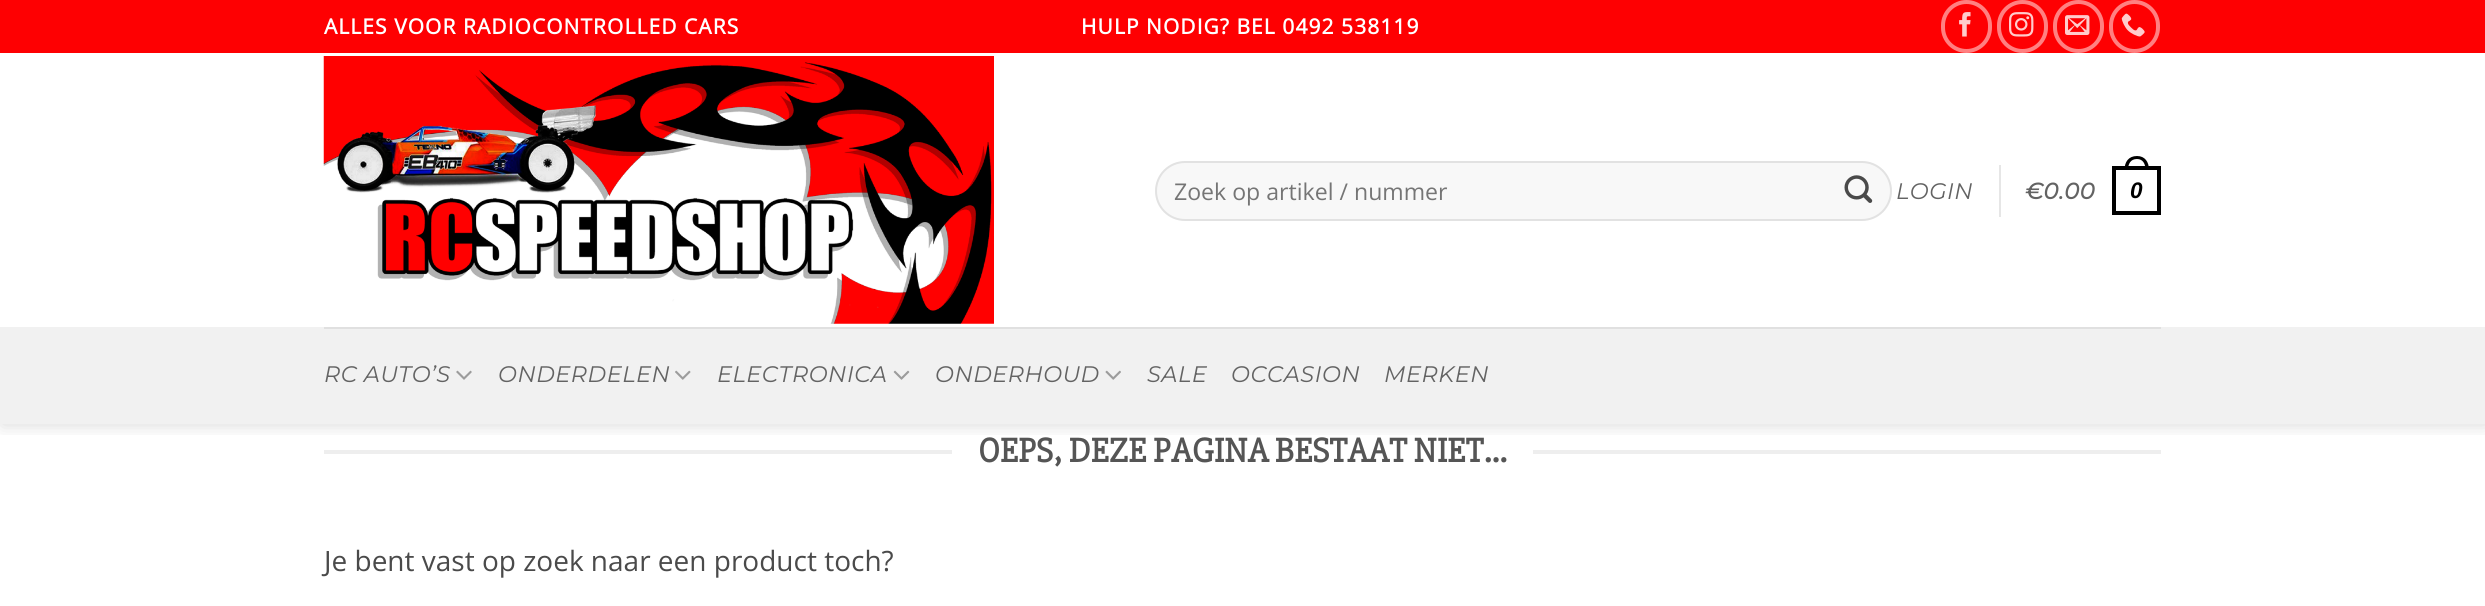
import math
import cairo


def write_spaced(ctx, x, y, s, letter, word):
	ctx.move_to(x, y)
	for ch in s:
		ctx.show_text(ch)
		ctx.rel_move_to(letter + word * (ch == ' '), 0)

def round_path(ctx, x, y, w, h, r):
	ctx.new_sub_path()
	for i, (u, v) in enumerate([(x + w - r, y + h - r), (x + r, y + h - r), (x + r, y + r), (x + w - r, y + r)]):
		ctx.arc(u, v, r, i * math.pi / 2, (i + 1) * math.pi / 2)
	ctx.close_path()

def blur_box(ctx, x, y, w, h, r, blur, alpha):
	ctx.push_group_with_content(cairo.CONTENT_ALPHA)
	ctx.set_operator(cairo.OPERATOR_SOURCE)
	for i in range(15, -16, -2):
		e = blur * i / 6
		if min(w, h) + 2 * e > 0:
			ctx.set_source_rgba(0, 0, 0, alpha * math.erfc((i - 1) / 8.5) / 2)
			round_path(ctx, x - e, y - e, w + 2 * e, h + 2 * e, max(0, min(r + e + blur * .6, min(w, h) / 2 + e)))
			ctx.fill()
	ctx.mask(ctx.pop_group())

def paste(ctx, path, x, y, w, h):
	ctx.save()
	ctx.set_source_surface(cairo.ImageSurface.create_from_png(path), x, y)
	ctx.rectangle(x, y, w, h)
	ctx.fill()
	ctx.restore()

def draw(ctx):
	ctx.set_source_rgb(1, 1, 1)
	ctx.paint()
	ctx.set_source_rgb(0.933, 0.933, 0.933)
	ctx.rectangle(324, 450, 628, 4)
	ctx.fill()
	ctx.rectangle(1533, 450, 628, 4)
	ctx.fill()
	ctx.save()
	ctx.rectangle(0, 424, 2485, 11)
	ctx.clip()
	ctx.set_source_rgb(0, 0, 0)
	blur_box(ctx, 2, 2, 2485, 423, 0, 9, 0.15)
	ctx.restore()
	ctx.set_source_rgb(0.996, 0, 0.008)
	ctx.rectangle(0, 0, 2485, 53)
	ctx.fill()
	ctx.select_font_face('Open Sans', cairo.FONT_SLANT_NORMAL, cairo.FONT_WEIGHT_BOLD)
	ctx.set_font_size(21)
	ctx.set_source_rgb(1, 1, 1)
	write_spaced(ctx, 324, 34, 'ALLES VOOR RADIOCONTROLLED CARS', 1.05, 0)
	write_spaced(ctx, 1081, 34, 'HULP NODIG? BEL 0492 538119', 1.05, 0)
	round_path(ctx, 1943, 2, 47, 49, 23.5)
	ctx.set_source_rgb(1, 0.502, 0.506)
	ctx.set_line_width(4)
	ctx.stroke()
	paste(ctx, 'media/1.png', 1959, 12, 12, 25)
	round_path(ctx, 1999, 2, 47, 49, 23.5)
	ctx.stroke()
	paste(ctx, 'media/2.png', 2009, 12, 25, 25)
	round_path(ctx, 2055, 2, 47, 49, 23.5)
	ctx.stroke()
	paste(ctx, 'media/3.png', 2065, 15, 25, 20)
	round_path(ctx, 2111, 2, 47, 49, 23.5)
	ctx.stroke()
	paste(ctx, 'media/4.png', 2121, 13, 24, 24)
	paste(ctx, 'media/5.png', 323, 56, 671, 268)
	ctx.set_source_rgb(0.969, 0.969, 0.969)
	round_path(ctx, 1155, 161, 737, 60, 30)
	ctx.fill()
	round_path(ctx, 1156, 162, 735, 58, 29)
	ctx.set_source_rgba(0, 0, 0, 0.09)
	ctx.set_line_width(2)
	ctx.stroke()
	ctx.select_font_face('Open Sans')
	ctx.set_font_size(23.1)
	ctx.set_source_rgb(0.459, 0.459, 0.459)
	ctx.move_to(1174, 200)
	ctx.show_text('Zoek op artikel / nummer')
	paste(ctx, 'media/6.png', 1844, 175, 29, 28)
	ctx.select_font_face('Montserrat Thin', cairo.FONT_SLANT_ITALIC)
	ctx.set_font_size(22.5)
	ctx.set_source_rgb(0.388, 0.388, 0.388)
	write_spaced(ctx, 1896, 199, 'LOGIN', 0.5, 0)
	ctx.set_source_rgb(0.902, 0.902, 0.902)
	ctx.rectangle(1999, 165, 2, 52)
	ctx.fill()
	ctx.select_font_face('Montserrat', cairo.FONT_SLANT_ITALIC, cairo.FONT_WEIGHT_BOLD)
	ctx.set_source_rgb(0.388, 0.388, 0.388)
	write_spaced(ctx, 2025, 199, '€0.00', 0.5, 0)
	ctx.rectangle(2114, 168, 45, 45)
	ctx.set_source_rgb(0, 0, 0)
	ctx.set_line_width(4)
	ctx.stroke()
	ctx.set_fill_rule(cairo.FILL_RULE_EVEN_ODD)
	ctx.new_path()
	ctx.move_to(2137, 156)
	ctx.curve_to(2145, 156, 2149, 162, 2149, 170)
	ctx.line_to(2124.5, 170)
	ctx.curve_to(2124.5, 162, 2128.5, 156, 2137, 156)
	ctx.close_path()
	ctx.move_to(2137, 159)
	ctx.curve_to(2143, 159, 2145.5, 164, 2145.5, 170)
	ctx.line_to(2128, 170)
	ctx.curve_to(2128, 164, 2130.5, 159, 2137, 159)
	ctx.close_path()
	ctx.fill()
	ctx.select_font_face('Liberation Sans', cairo.FONT_SLANT_ITALIC, cairo.FONT_WEIGHT_BOLD)
	write_spaced(ctx, 2130, 198, '0', 0.5, 0)
	ctx.set_source_rgb(0.945, 0.945, 0.945)
	ctx.rectangle(0, 327, 2485, 97)
	ctx.fill()
	ctx.set_source_rgb(0.878, 0.878, 0.878)
	ctx.rectangle(324, 327, 1837, 2)
	ctx.fill()
	ctx.select_font_face('Montserrat Thin', cairo.FONT_SLANT_ITALIC)
	ctx.set_source_rgb(0.388, 0.388, 0.388)
	write_spaced(ctx, 324, 382, 'RC AUTO’S', 0.5, 0)
	paste(ctx, 'media/7.png', 456, 370, 16, 10)
	write_spaced(ctx, 498, 382, 'ONDERDELEN', 0.5, 0)
	paste(ctx, 'media/8.png', 675, 370, 16, 10)
	write_spaced(ctx, 717, 382, 'ELECTRONICA', 0.5, 0)
	paste(ctx, 'media/9.png', 893, 370, 17, 10)
	write_spaced(ctx, 935, 382, 'ONDERHOUD', 0.5, 0)
	paste(ctx, 'media/10.png', 1105, 370, 16, 10)
	for x, y, s in [
		(1147, 382, 'SALE'),
		(1231, 382, 'OCCASION'),
		(1384, 382, 'MERKEN'),
	]:
		write_spaced(ctx, x, y, s, 0.5, 0)
	ctx.select_font_face('Slabo 27px', cairo.FONT_SLANT_NORMAL, cairo.FONT_WEIGHT_BOLD)
	ctx.set_font_size(35)
	ctx.set_source_rgb(0.333, 0.333, 0.333)
	ctx.move_to(978, 462)
	ctx.show_text('OEPS, DEZE PAGINA BESTAAT NIET...')
	ctx.select_font_face('Open Sans')
	ctx.set_font_size(28)
	ctx.set_source_rgb(0.29, 0.29, 0.29)
	ctx.move_to(324, 571)
	ctx.show_text('Je bent vast op zoek naar een product toch?')


surface = cairo.ImageSurface(cairo.FORMAT_RGB24, 2485, 606)
ctx = cairo.Context(surface)
options = cairo.FontOptions()
options.set_hint_metrics(cairo.HINT_METRICS_OFF)
options.set_hint_style(cairo.HINT_STYLE_NONE)
ctx.set_font_options(options)
ctx.set_miter_limit(4)
draw(ctx)
surface.write_to_png('image.png')
